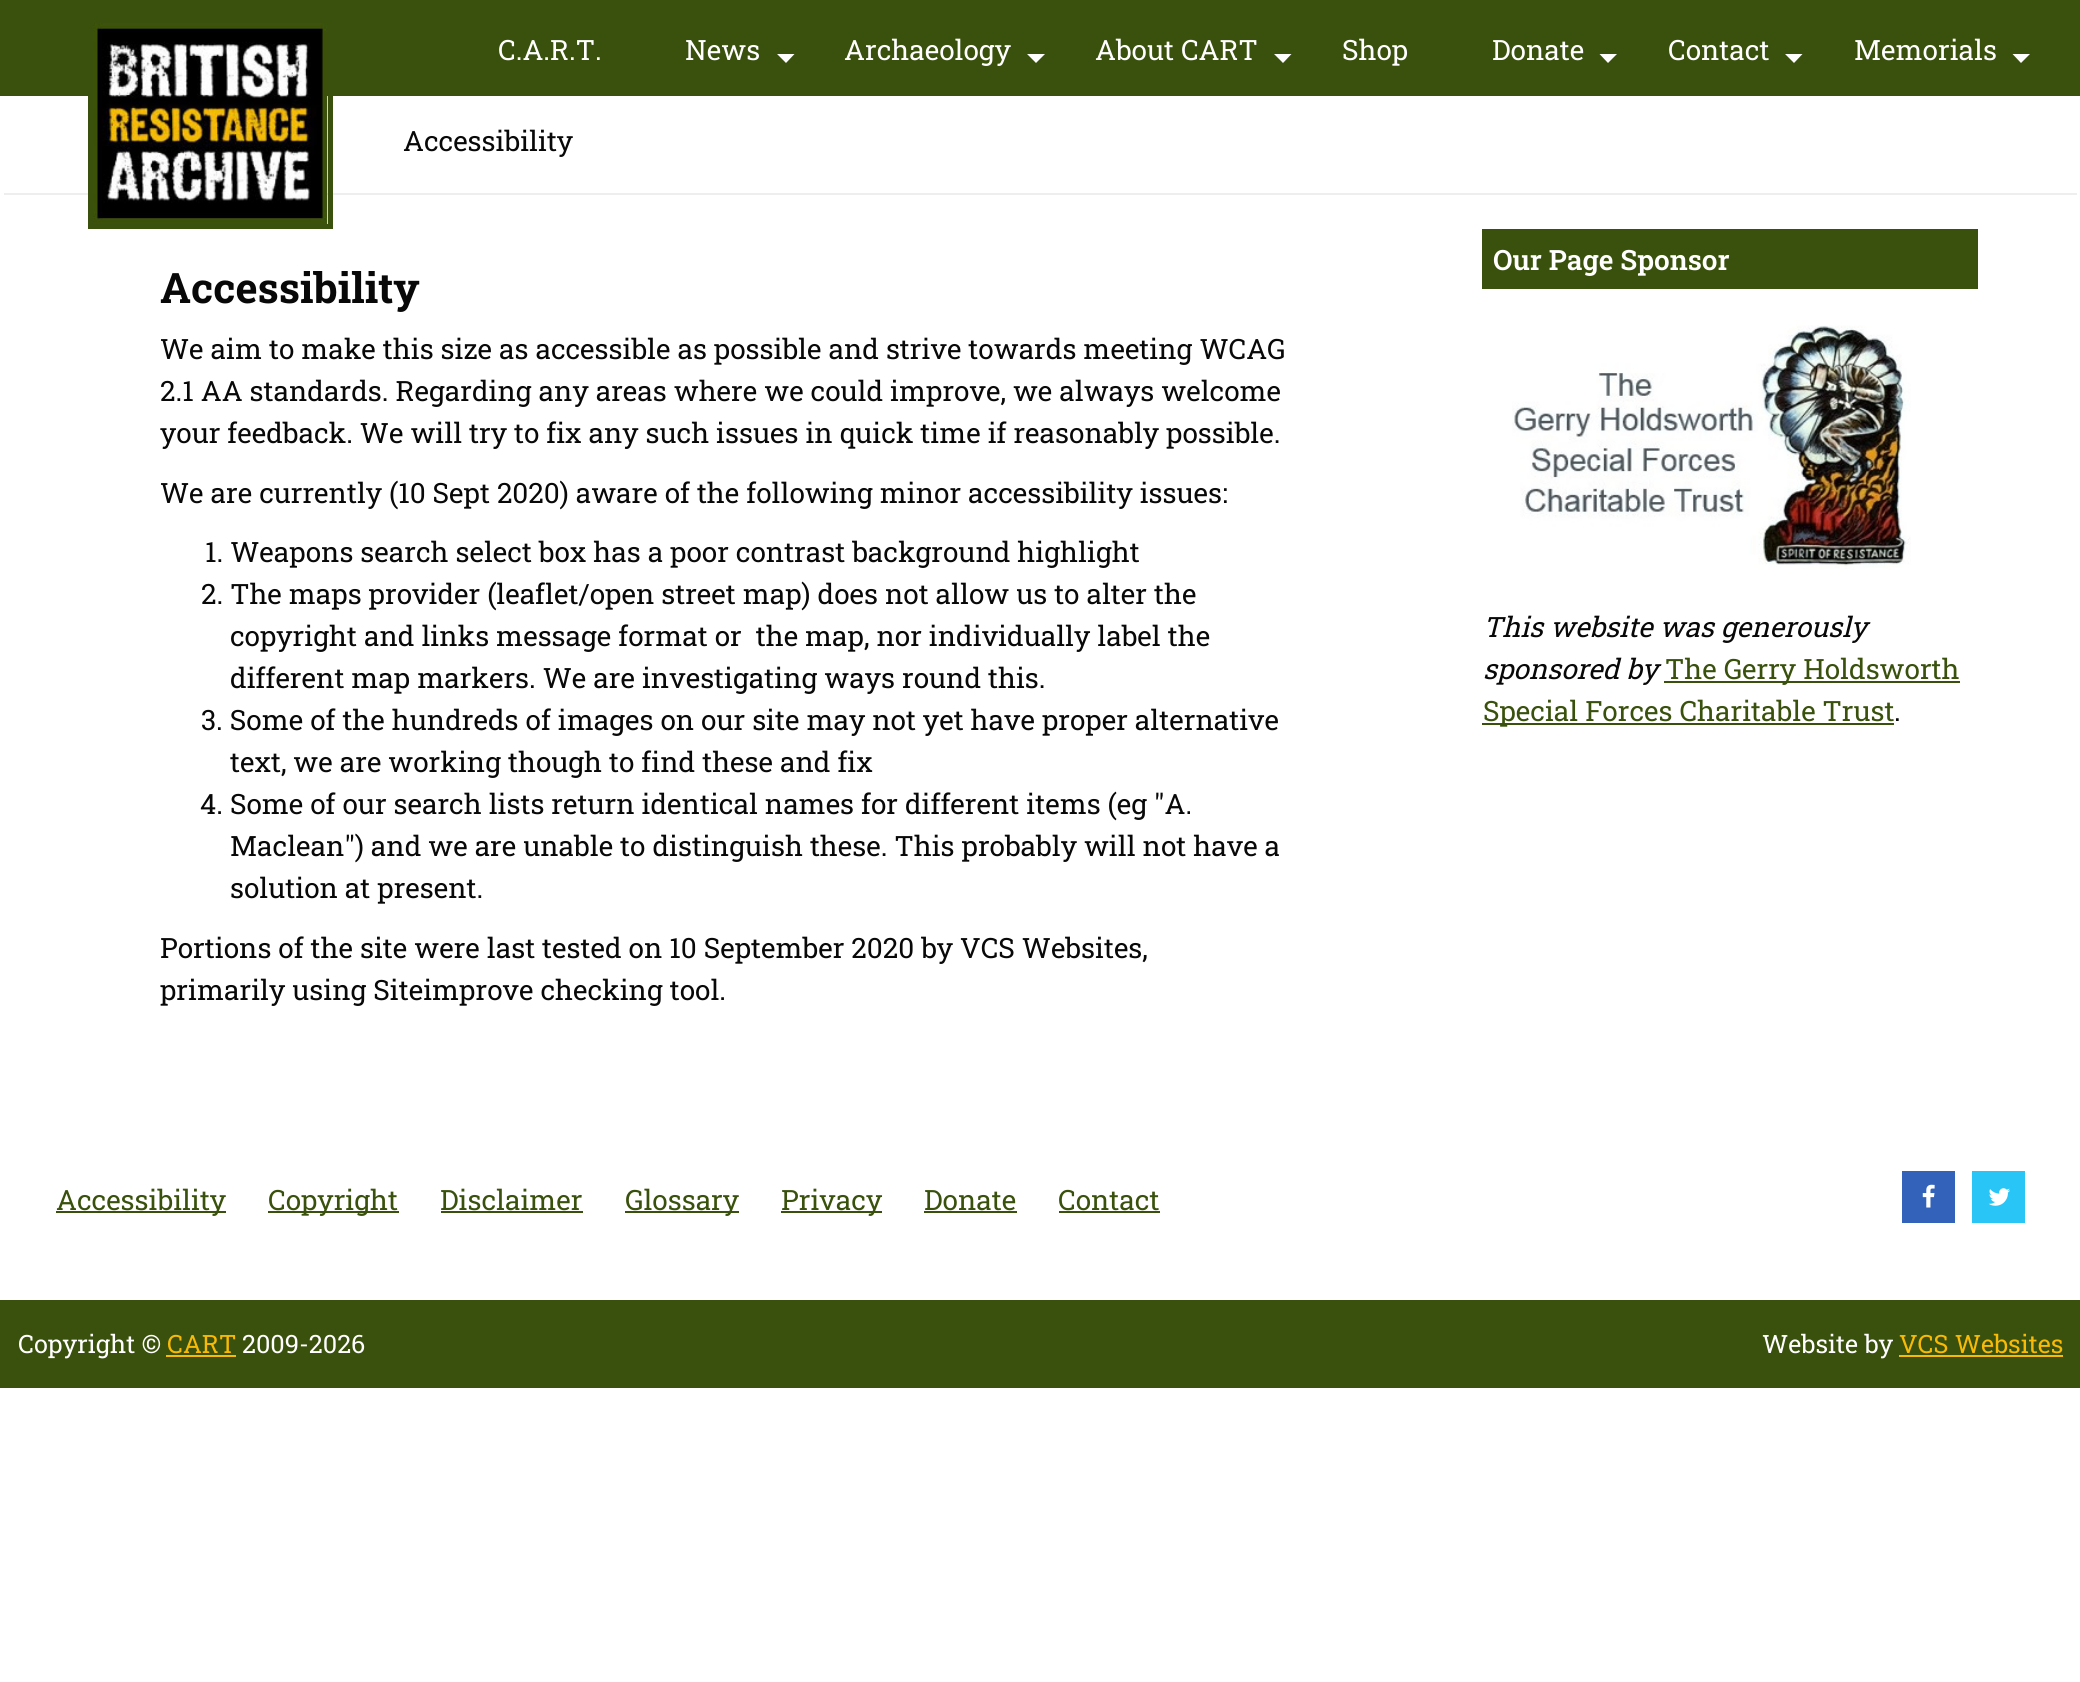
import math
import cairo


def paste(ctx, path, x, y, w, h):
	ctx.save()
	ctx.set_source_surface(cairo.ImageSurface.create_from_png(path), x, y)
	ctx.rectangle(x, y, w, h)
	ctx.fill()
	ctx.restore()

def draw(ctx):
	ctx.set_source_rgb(1, 1, 1)
	ctx.paint()
	ctx.set_source_rgb(0.224, 0.318, 0.047)
	ctx.rectangle(0, 0, 2080, 96)
	ctx.fill()
	ctx.set_source_rgb(0.933, 0.933, 0.933)
	ctx.rectangle(4, 193, 2073, 2)
	ctx.fill()
	ctx.rectangle(90.5, 20.5, 240, 206)
	ctx.set_source_rgb(0.224, 0.318, 0.047)
	ctx.set_line_width(5)
	ctx.stroke()
	paste(ctx, 'media/1.png', 93, 23, 235, 201)
	ctx.select_font_face('Roboto Slab')
	ctx.set_font_size(28)
	ctx.set_source_rgb(1, 1, 1)
	ctx.move_to(498, 60)
	ctx.show_text('C.A.R.T.')
	ctx.move_to(685, 60)
	ctx.show_text('News')
	ctx.new_path()
	ctx.move_to(777, 54)
	ctx.line_to(794.5, 54)
	ctx.line_to(786, 63)
	ctx.close_path()
	ctx.fill()
	ctx.move_to(844, 60)
	ctx.show_text('Archaeology')
	ctx.new_path()
	ctx.move_to(1027, 54)
	ctx.line_to(1045, 54)
	ctx.line_to(1036, 63)
	ctx.close_path()
	ctx.fill()
	ctx.move_to(1095, 60)
	ctx.show_text('About CART')
	ctx.new_path()
	ctx.move_to(1274, 54)
	ctx.line_to(1291.5, 54)
	ctx.line_to(1283, 63)
	ctx.close_path()
	ctx.fill()
	ctx.move_to(1342, 60)
	ctx.show_text('Shop')
	ctx.move_to(1492, 60)
	ctx.show_text('Donate')
	ctx.new_path()
	ctx.move_to(1599.5, 54)
	ctx.line_to(1617, 54)
	ctx.line_to(1608, 63)
	ctx.close_path()
	ctx.fill()
	ctx.move_to(1668, 60)
	ctx.show_text('Contact')
	ctx.new_path()
	ctx.move_to(1785, 54)
	ctx.line_to(1802.5, 54)
	ctx.line_to(1794, 63)
	ctx.close_path()
	ctx.fill()
	ctx.move_to(1854, 60)
	ctx.show_text('Memorials')
	ctx.new_path()
	ctx.move_to(2012.5, 54)
	ctx.line_to(2030, 54)
	ctx.line_to(2021, 63)
	ctx.close_path()
	ctx.fill()
	ctx.set_source_rgb(0.035, 0.035, 0.035)
	ctx.move_to(403, 151)
	ctx.show_text('Accessibility')
	ctx.select_font_face('Roboto Slab', cairo.FONT_SLANT_NORMAL, cairo.FONT_WEIGHT_BOLD)
	ctx.set_font_size(42)
	ctx.move_to(160, 303)
	ctx.show_text('Accessibility')
	ctx.select_font_face('Roboto Slab')
	ctx.set_font_size(28)
	for x, y, s in [
		(160, 359, 'We aim to make this size as accessible as possible and strive towards meeting WCAG'),
		(160, 401, '2.1 AA standards. Regarding any areas where we could improve, we always welcome'),
		(160, 443, 'your feedback. We will try to fix any such issues in quick time if reasonably possible.'),
		(160, 503, 'We are currently (10 Sept 2020) aware of the following minor accessibility issues:'),
		(205, 562, '1. Weapons search select box has a poor contrast background highlight'),
		(201, 604, '2. The maps provider (leaflet/open street map) does not allow us to alter the'),
		(230, 646, 'copyright and links message format or  the map, nor individually label the'),
		(230, 688, 'different map markers. We are investigating ways round this.'),
		(201, 730, '3. Some of the hundreds of images on our site may not yet have proper alternative'),
		(230, 772, 'text, we are working though to find these and fix'),
		(200, 814, '4. Some of our search lists return identical names for different items (eg "A.'),
		(230, 856, 'Maclean") and we are unable to distinguish these. This probably will not have a'),
		(230, 898, 'solution at present.'),
		(160, 958, 'Portions of the site were last tested on 10 September 2020 by VCS Websites,'),
		(160, 1000, 'primarily using Siteimprove checking tool.'),
	]:
		ctx.move_to(x, y)
		ctx.show_text(s)
	ctx.set_source_rgb(0.224, 0.318, 0.047)
	ctx.rectangle(1482, 229, 496, 60)
	ctx.fill()
	ctx.select_font_face('Roboto Slab SemiBold')
	ctx.set_source_rgb(1, 1, 1)
	ctx.move_to(1493, 270)
	ctx.show_text('Our Page Sponsor')
	paste(ctx, 'media/2.png', 1512, 325, 399, 245)
	ctx.select_font_face('Roboto Slab', cairo.FONT_SLANT_ITALIC)
	ctx.set_source_rgb(0.035, 0.035, 0.035)
	ctx.move_to(1483, 637)
	ctx.show_text('This website was generously')
	ctx.move_to(1483, 679)
	ctx.show_text('sponsored by')
	ctx.set_source_rgb(0.224, 0.318, 0.047)
	ctx.rectangle(1664, 681, 296, 2)
	ctx.fill()
	ctx.select_font_face('Roboto Slab')
	ctx.move_to(1665, 679)
	ctx.show_text('The Gerry Holdsworth')
	ctx.rectangle(1482, 723, 412, 2)
	ctx.fill()
	ctx.move_to(1483, 721)
	ctx.show_text('Special Forces Charitable Trust')
	ctx.set_source_rgb(0.035, 0.035, 0.035)
	ctx.move_to(1894, 721)
	ctx.show_text('.')
	ctx.set_source_rgb(0.224, 0.318, 0.047)
	ctx.rectangle(56, 1211, 170, 2)
	ctx.fill()
	ctx.move_to(56, 1210)
	ctx.show_text('Accessibility')
	ctx.rectangle(268, 1211, 131, 2)
	ctx.fill()
	ctx.move_to(268, 1210)
	ctx.show_text('Copyright')
	ctx.move_to(440, 1210)
	ctx.show_text('Disclaimer')
	ctx.rectangle(441, 1211, 142, 2)
	ctx.fill()
	ctx.rectangle(625, 1211, 114, 2)
	ctx.fill()
	ctx.move_to(625, 1210)
	ctx.show_text('Glossary')
	ctx.rectangle(781, 1211, 101, 2)
	ctx.fill()
	ctx.move_to(781, 1210)
	ctx.show_text('Privacy')
	ctx.move_to(924, 1210)
	ctx.show_text('Donate')
	ctx.rectangle(924, 1211, 93, 2)
	ctx.fill()
	ctx.move_to(1058, 1210)
	ctx.show_text('Contact')
	ctx.rectangle(1059, 1211, 101, 2)
	ctx.fill()
	ctx.set_source_rgb(0.196, 0.384, 0.725)
	ctx.rectangle(1902, 1171, 53, 52)
	ctx.fill()
	paste(ctx, 'media/3.png', 1922, 1184, 13, 24)
	ctx.set_source_rgb(0.161, 0.773, 0.965)
	ctx.rectangle(1972, 1171, 53, 52)
	ctx.fill()
	paste(ctx, 'media/4.png', 1988, 1188, 22, 18)
	ctx.set_source_rgb(0.224, 0.318, 0.047)
	ctx.rectangle(0, 1300, 2080, 88)
	ctx.fill()
	ctx.set_font_size(25.25)
	ctx.set_source_rgb(1, 1, 1)
	ctx.move_to(18, 1353)
	ctx.show_text('Copyright ©')
	ctx.set_source_rgb(0.969, 0.725, 0.031)
	ctx.move_to(167, 1353)
	ctx.show_text('CART')
	ctx.rectangle(166, 1355, 70, 2)
	ctx.fill()
	ctx.set_source_rgb(1, 1, 1)
	ctx.move_to(242, 1353)
	ctx.show_text('2009-2026')
	ctx.move_to(1762, 1353)
	ctx.show_text('Website by')
	ctx.set_source_rgb(0.969, 0.725, 0.031)
	ctx.move_to(1899, 1353)
	ctx.show_text('VCS Websites')
	ctx.rectangle(1899, 1355, 164, 2)
	ctx.fill()


surface = cairo.ImageSurface(cairo.FORMAT_RGB24, 2080, 1682)
ctx = cairo.Context(surface)
options = cairo.FontOptions()
options.set_hint_metrics(cairo.HINT_METRICS_OFF)
options.set_hint_style(cairo.HINT_STYLE_NONE)
ctx.set_font_options(options)
ctx.set_miter_limit(4)
draw(ctx)
surface.write_to_png('image.png')
